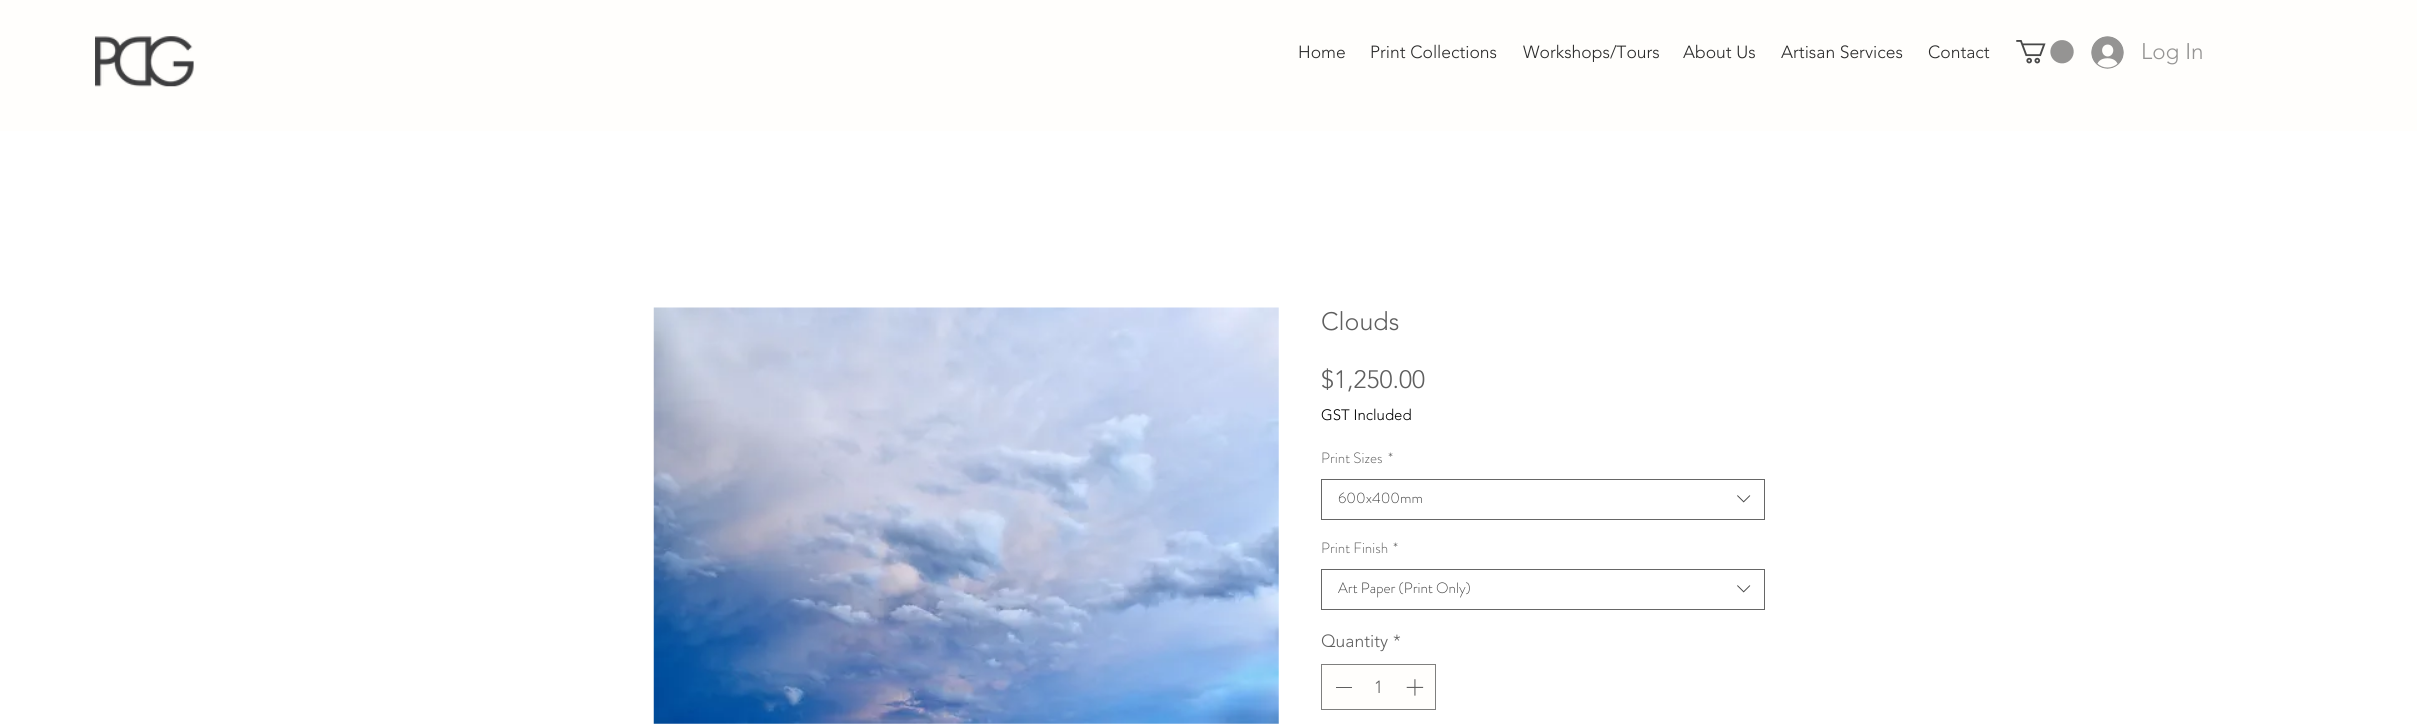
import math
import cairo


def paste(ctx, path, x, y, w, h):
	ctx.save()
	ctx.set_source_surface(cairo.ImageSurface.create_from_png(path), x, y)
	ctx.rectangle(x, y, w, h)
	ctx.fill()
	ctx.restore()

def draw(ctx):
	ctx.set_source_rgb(1, 1, 1)
	ctx.paint()
	ctx.set_source_rgb(1, 0.996, 0.988)
	ctx.rectangle(0, 0, 2417, 131)
	ctx.fill()
	paste(ctx, 'media/1.png', 95, 36, 99, 51)
	ctx.select_font_face('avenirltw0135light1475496 Light')
	ctx.set_font_size(17.5)
	ctx.set_source_rgb(0.165, 0.165, 0.165)
	for x, y, s in [
		(1298, 58, 'Home'),
		(1370, 58, 'Print Collections'),
		(1523, 58, 'Workshops/Tours'),
		(1683, 58, 'About Us'),
		(1781, 58, 'Artisan Services'),
		(1928, 58, 'Contact'),
	]:
		ctx.move_to(x, y)
		ctx.show_text(s)
	paste(ctx, 'media/2.png', 2016, 40, 58, 24)
	paste(ctx, 'media/3.png', 2091, 36, 33, 33)
	ctx.set_font_size(22.5)
	ctx.set_source_rgb(0.584, 0.58, 0.576)
	ctx.move_to(2141, 59)
	ctx.show_text('Log In')
	paste(ctx, 'media/4.png', 653, 307, 626, 417)
	ctx.set_font_size(25)
	ctx.set_source_rgb(0.373, 0.373, 0.373)
	ctx.move_to(1321, 330)
	ctx.show_text('Clouds')
	ctx.move_to(1321, 388)
	ctx.show_text('$1,250.00')
	ctx.set_font_size(15)
	ctx.set_source_rgb(0, 0, 0)
	ctx.move_to(1321, 420)
	ctx.show_text('GST Included')
	ctx.select_font_face('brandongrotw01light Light')
	ctx.set_source_rgb(0.373, 0.373, 0.373)
	ctx.move_to(1321, 463)
	ctx.show_text('Print Sizes')
	ctx.move_to(1388, 463)
	ctx.show_text('*')
	ctx.rectangle(1321.5, 479.5, 443, 40)
	ctx.set_source_rgb(0.4, 0.4, 0.4)
	ctx.set_line_width(1)
	ctx.stroke()
	ctx.set_source_rgb(0.267, 0.267, 0.267)
	ctx.move_to(1338, 503)
	ctx.show_text('600x400mm')
	paste(ctx, 'media/5.png', 1737, 495, 14, 8)
	ctx.set_source_rgb(0.373, 0.373, 0.373)
	ctx.move_to(1321, 553)
	ctx.show_text('Print Finish')
	ctx.move_to(1393, 553)
	ctx.show_text('*')
	ctx.rectangle(1321.5, 569.5, 443, 40)
	ctx.set_source_rgb(0.4, 0.4, 0.4)
	ctx.stroke()
	ctx.set_source_rgb(0.267, 0.267, 0.267)
	ctx.move_to(1338, 593)
	ctx.show_text('Art Paper (Print Only)')
	paste(ctx, 'media/5.png', 1737, 585, 14, 8)
	ctx.select_font_face('avenirltw0135light1475496 Light')
	ctx.set_font_size(17.5)
	ctx.set_source_rgb(0.373, 0.373, 0.373)
	ctx.move_to(1321, 647)
	ctx.show_text('Quantity')
	ctx.move_to(1393, 647)
	ctx.show_text('*')
	ctx.set_source_rgb(1, 0.996, 0.988)
	ctx.rectangle(1321.5, 664.5, 114, 45)
	ctx.fill_preserve()
	ctx.set_source_rgb(0.498, 0.498, 0.494)
	ctx.stroke()
	ctx.set_source_rgb(0.373, 0.373, 0.373)
	ctx.rectangle(1336, 687, 16, 1)
	ctx.fill()
	ctx.move_to(1374, 693)
	ctx.show_text('1')
	paste(ctx, 'media/6.png', 1406, 679, 18, 17)


surface = cairo.ImageSurface(cairo.FORMAT_RGB24, 2417, 727)
ctx = cairo.Context(surface)
options = cairo.FontOptions()
options.set_hint_metrics(cairo.HINT_METRICS_OFF)
options.set_hint_style(cairo.HINT_STYLE_NONE)
ctx.set_font_options(options)
ctx.set_miter_limit(4)
draw(ctx)
surface.write_to_png('image.png')
